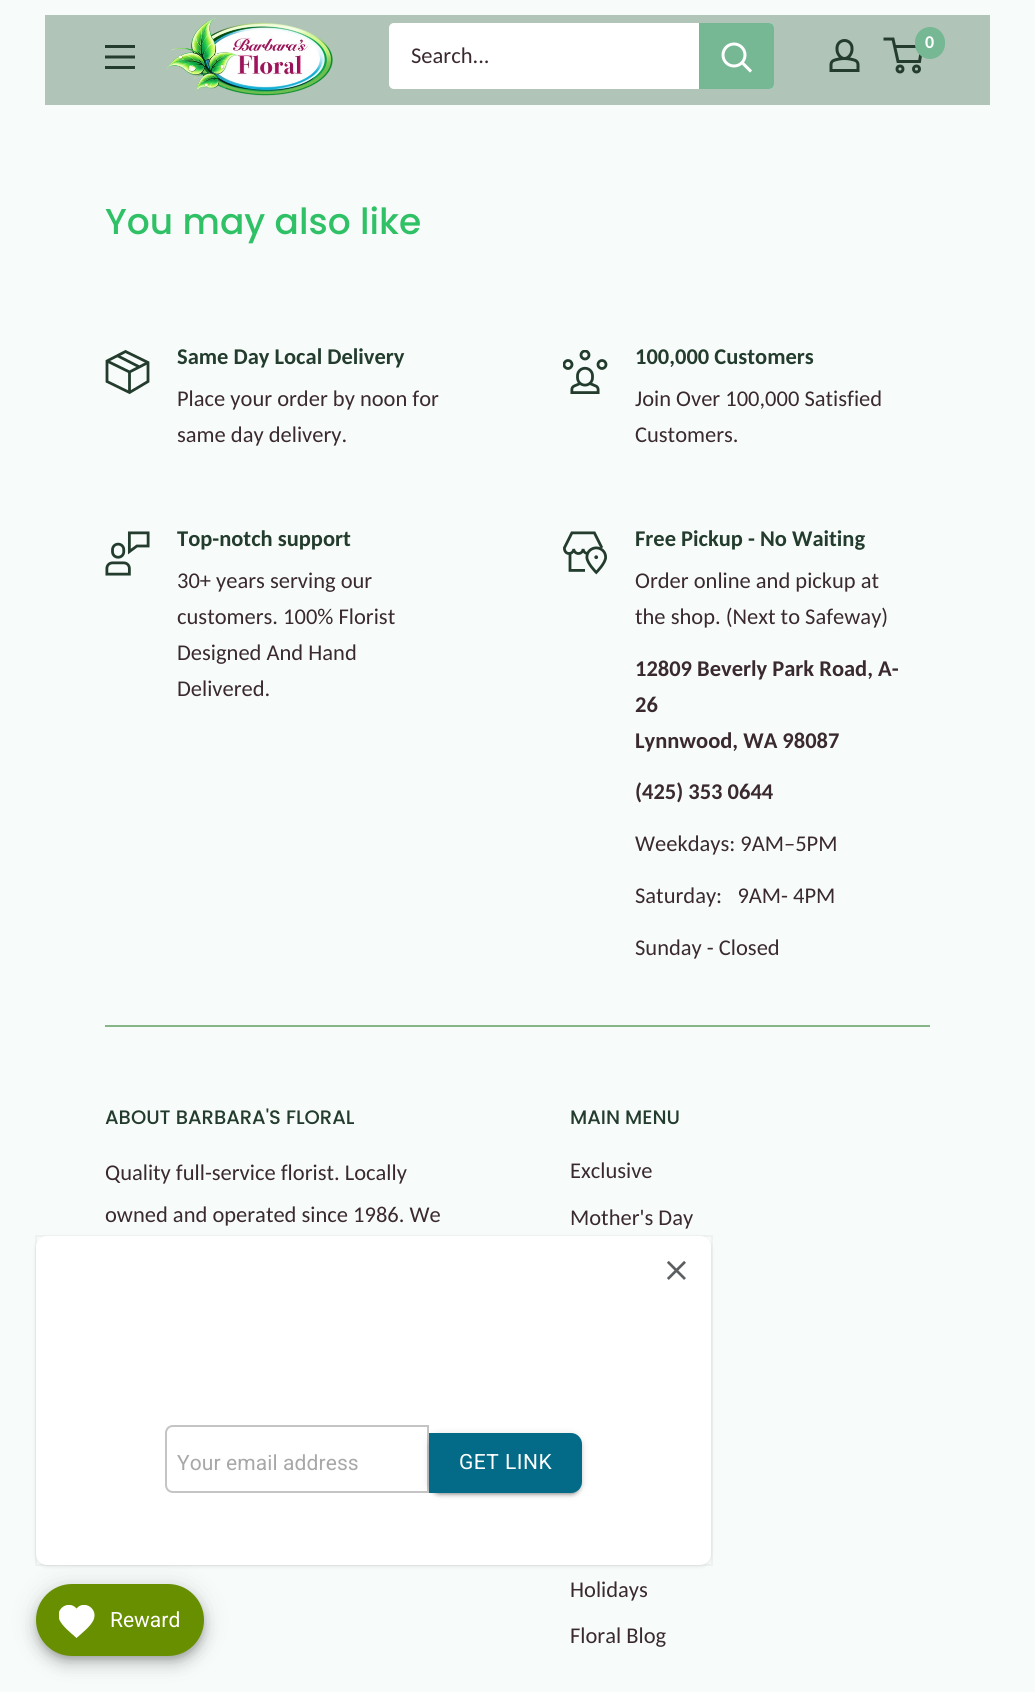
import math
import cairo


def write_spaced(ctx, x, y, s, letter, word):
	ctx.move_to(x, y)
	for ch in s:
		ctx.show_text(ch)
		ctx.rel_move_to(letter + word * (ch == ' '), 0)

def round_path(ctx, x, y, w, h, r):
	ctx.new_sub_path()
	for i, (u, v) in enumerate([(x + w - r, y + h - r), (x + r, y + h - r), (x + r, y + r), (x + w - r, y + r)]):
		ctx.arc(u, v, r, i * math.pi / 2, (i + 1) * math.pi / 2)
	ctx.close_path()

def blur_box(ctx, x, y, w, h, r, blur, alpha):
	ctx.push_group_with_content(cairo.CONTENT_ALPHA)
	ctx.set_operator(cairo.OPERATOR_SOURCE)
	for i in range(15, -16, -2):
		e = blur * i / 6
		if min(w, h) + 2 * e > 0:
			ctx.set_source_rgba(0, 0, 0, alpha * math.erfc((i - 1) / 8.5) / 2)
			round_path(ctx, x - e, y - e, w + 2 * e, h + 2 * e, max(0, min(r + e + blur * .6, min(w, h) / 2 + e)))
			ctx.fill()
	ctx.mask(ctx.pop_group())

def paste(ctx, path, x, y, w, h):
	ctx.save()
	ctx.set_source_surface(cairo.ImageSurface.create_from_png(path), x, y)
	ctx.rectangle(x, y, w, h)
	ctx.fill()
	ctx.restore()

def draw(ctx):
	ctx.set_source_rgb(0.965, 0.988, 0.98)
	ctx.paint()
	ctx.set_source_rgb(0.69, 0.773, 0.718)
	ctx.rectangle(45, 15, 945, 90)
	ctx.fill()
	paste(ctx, 'media/1.png', 166, 18, 167, 78)
	paste(ctx, 'media/2.png', 829, 39, 31, 33)
	ctx.arc(900, 69, 3, 0, 2 * math.pi)
	ctx.set_source_rgb(0.137, 0.235, 0.18)
	ctx.set_line_width(3)
	ctx.stroke()
	ctx.arc(916.5, 69, 3, 0, 2 * math.pi)
	ctx.stroke()
	ctx.new_path()
	ctx.move_to(894.5, 46.5)
	ctx.line_to(922, 46.5)
	ctx.line_to(919.5, 61.5)
	ctx.line_to(898, 61.5)
	ctx.line_to(893, 39)
	ctx.line_to(883.5, 39)
	ctx.stroke()
	ctx.set_source_rgb(0.463, 0.718, 0.58)
	round_path(ctx, 915, 27, 30, 32, 15)
	ctx.fill()
	ctx.select_font_face('Carlito', cairo.FONT_SLANT_NORMAL, cairo.FONT_WEIGHT_BOLD)
	ctx.set_font_size(18)
	ctx.set_source_rgb(1, 1, 1)
	ctx.move_to(925, 48)
	ctx.show_text('0')
	paste(ctx, 'media/3.png', 105, 45, 30, 24)
	round_path(ctx, 389, 23, 385, 66, 5)
	ctx.fill()
	ctx.select_font_face('Carlito')
	ctx.set_font_size(22.5)
	ctx.set_source_rgb(0.227, 0.165, 0.184)
	ctx.move_to(411, 63)
	ctx.show_text('Search...')
	ctx.set_source_rgb(0.463, 0.718, 0.58)
	ctx.new_path()
	ctx.move_to(699, 23)
	ctx.line_to(769, 23)
	ctx.curve_to(772, 23, 774, 25, 774, 28)
	ctx.line_to(774, 84)
	ctx.curve_to(774, 87, 772, 89, 769, 89)
	ctx.line_to(699, 89)
	ctx.close_path()
	ctx.fill()
	ctx.new_path()
	ctx.move_to(750, 70.5)
	ctx.line_to(742.5, 63)
	ctx.set_source_rgb(1, 1, 1)
	ctx.set_line_cap(cairo.LINE_CAP_SQUARE)
	ctx.stroke()
	ctx.arc(734, 55, 11, 0, 2 * math.pi)
	ctx.set_line_cap(cairo.LINE_CAP_BUTT)
	ctx.stroke()
	ctx.select_font_face('Poppins Medium')
	ctx.set_font_size(36)
	ctx.set_source_rgb(0.188, 0.753, 0.4)
	ctx.move_to(105, 234)
	ctx.show_text('You may also like')
	ctx.new_path()
	ctx.move_to(117, 355.5)
	ctx.line_to(139.5, 367)
	ctx.move_to(148, 362.5)
	ctx.line_to(129.5, 372)
	ctx.line_to(107, 361)
	ctx.move_to(129.5, 372)
	ctx.line_to(129.5, 392.5)
	ctx.set_source_rgb(0.137, 0.235, 0.18)
	ctx.set_line_width(2.8)
	ctx.stroke()
	ctx.new_path()
	ctx.move_to(148, 362.5)
	ctx.line_to(148, 381.5)
	ctx.line_to(129.5, 392.5)
	ctx.line_to(107, 381.5)
	ctx.line_to(107, 361)
	ctx.line_to(125.5, 351.5)
	ctx.close_path()
	ctx.set_line_cap(cairo.LINE_CAP_SQUARE)
	ctx.stroke()
	ctx.select_font_face('Carlito', cairo.FONT_SLANT_NORMAL, cairo.FONT_WEIGHT_BOLD)
	ctx.set_font_size(22.5)
	ctx.move_to(177, 364)
	ctx.show_text('Same Day Local Delivery')
	ctx.select_font_face('Carlito')
	ctx.set_source_rgb(0.227, 0.165, 0.184)
	ctx.move_to(177, 406)
	ctx.show_text('Place your order by noon for')
	ctx.move_to(177, 442)
	ctx.show_text('same day delivery.')
	paste(ctx, 'media/4.png', 563, 350, 45, 44)
	ctx.select_font_face('Carlito', cairo.FONT_SLANT_NORMAL, cairo.FONT_WEIGHT_BOLD)
	ctx.set_source_rgb(0.137, 0.235, 0.18)
	ctx.move_to(635, 364)
	ctx.show_text('100,000 Customers')
	ctx.select_font_face('Carlito')
	ctx.set_source_rgb(0.227, 0.165, 0.184)
	ctx.move_to(635, 406)
	ctx.show_text('Join Over 100,000 Satisfied')
	ctx.move_to(635, 442)
	ctx.show_text('Customers.')
	paste(ctx, 'media/5.png', 105, 531, 45, 45)
	ctx.select_font_face('Carlito', cairo.FONT_SLANT_NORMAL, cairo.FONT_WEIGHT_BOLD)
	ctx.set_source_rgb(0.137, 0.235, 0.18)
	ctx.move_to(177, 546)
	ctx.show_text('Top-notch support')
	ctx.select_font_face('Carlito')
	ctx.set_source_rgb(0.227, 0.165, 0.184)
	for x, y, s in [
		(177, 588, '30+ years serving our'),
		(177, 624, 'customers. 100% Florist'),
		(177, 660, 'Designed And Hand'),
		(177, 696, 'Delivered.'),
	]:
		ctx.move_to(x, y)
		ctx.show_text(s)
	paste(ctx, 'media/6.png', 563, 531, 44, 44)
	ctx.select_font_face('Carlito', cairo.FONT_SLANT_NORMAL, cairo.FONT_WEIGHT_BOLD)
	ctx.set_source_rgb(0.137, 0.235, 0.18)
	ctx.move_to(635, 546)
	ctx.show_text('Free Pickup - No Waiting')
	ctx.select_font_face('Carlito')
	ctx.set_source_rgb(0.227, 0.165, 0.184)
	ctx.move_to(635, 588)
	ctx.show_text('Order online and pickup at')
	ctx.move_to(635, 624)
	ctx.show_text('the shop. (Next to Safeway)')
	ctx.select_font_face('Carlito', cairo.FONT_SLANT_NORMAL, cairo.FONT_WEIGHT_BOLD)
	for x, y, s in [
		(635, 676, '12809 Beverly Park Road, A-'),
		(635, 712, '26'),
		(635, 748, 'Lynnwood, WA 98087'),
		(635, 799, '(425) 353 0644'),
	]:
		ctx.move_to(x, y)
		ctx.show_text(s)
	ctx.select_font_face('Carlito')
	for x, y, s in [
		(635, 851, 'Weekdays: 9AM–5PM'),
		(635, 903, 'Saturday:   9AM- 4PM'),
		(635, 955, 'Sunday - Closed'),
	]:
		ctx.move_to(x, y)
		ctx.show_text(s)
	ctx.set_source_rgb(0.525, 0.714, 0.529)
	ctx.rectangle(105, 1025, 825, 2)
	ctx.fill()
	ctx.select_font_face('Poppins Medium')
	ctx.set_font_size(19.5)
	ctx.set_source_rgb(0.137, 0.235, 0.18)
	ctx.move_to(105, 1124)
	ctx.show_text('ABOUT BARBARA\'S FLORAL')
	ctx.select_font_face('Carlito')
	ctx.set_font_size(22.5)
	ctx.set_source_rgb(0.227, 0.165, 0.184)
	ctx.move_to(105, 1180)
	ctx.show_text('Quality full-service florist. Locally')
	ctx.move_to(105, 1222)
	ctx.show_text('owned and operated since 1986. We')
	ctx.select_font_face('Poppins Medium')
	ctx.set_font_size(19.5)
	ctx.set_source_rgb(0.137, 0.235, 0.18)
	ctx.move_to(570, 1124)
	ctx.show_text('MAIN MENU')
	ctx.select_font_face('Carlito')
	ctx.set_font_size(22.5)
	ctx.set_source_rgb(0.227, 0.165, 0.184)
	for x, y, s in [
		(570, 1178, 'Exclusive'),
		(570, 1225, 'Mother\'s Day'),
		(570, 1597, 'Holidays'),
		(570, 1643, 'Floral Blog'),
	]:
		ctx.move_to(x, y)
		ctx.show_text(s)
	ctx.set_source_rgb(0.247, 0.247, 0.267)
	blur_box(ctx, 36, 1238, 675, 328, 11, 2, 0.15)
	ctx.set_source_rgb(0, 0, 0)
	blur_box(ctx, 36, 1586, 168, 72, 36, 13.5, 0.12)
	ctx.rectangle(36, 1236, 676, 329)
	ctx.set_source_rgba(0.247, 0.247, 0.267, 0.05)
	ctx.set_line_width(2)
	ctx.set_line_cap(cairo.LINE_CAP_BUTT)
	ctx.stroke()
	ctx.set_source_rgb(1, 1, 1)
	round_path(ctx, 36, 1236, 675, 329, 11)
	ctx.fill()
	paste(ctx, 'media/7.png', 666, 1260, 20, 20)
	ctx.new_path()
	ctx.move_to(173, 1426)
	ctx.line_to(428, 1426)
	ctx.line_to(428, 1492)
	ctx.line_to(173, 1492)
	ctx.curve_to(169, 1492, 166, 1489, 166, 1485)
	ctx.line_to(166, 1433)
	ctx.curve_to(166, 1429, 169, 1426, 173, 1426)
	ctx.close_path()
	ctx.set_source_rgb(0.769, 0.769, 0.769)
	ctx.stroke()
	ctx.select_font_face('Roboto')
	ctx.set_font_size(21)
	ctx.set_source_rgb(0.659, 0.659, 0.659)
	write_spaced(ctx, 177, 1470, 'Your email address', 0.1, 0)
	ctx.set_source_rgb(0, 0, 0)
	blur_box(ctx, 429, 1434, 153, 60, 11, 4, 0.12)
	blur_box(ctx, 429, 1436, 153, 60, 11, 1.5, 0.14)
	blur_box(ctx, 432, 1440, 147, 54, 8, 1, 0.2)
	ctx.set_source_rgb(0.012, 0.42, 0.529)
	ctx.new_path()
	ctx.move_to(429, 1433)
	ctx.line_to(571, 1433)
	ctx.curve_to(577, 1433, 582, 1438, 582, 1444)
	ctx.line_to(582, 1482)
	ctx.curve_to(582, 1488, 577, 1493, 571, 1493)
	ctx.line_to(429, 1493)
	ctx.close_path()
	ctx.fill()
	ctx.set_source_rgb(1, 1, 1)
	write_spaced(ctx, 459, 1469, 'GET LINK', 0.5, 0)
	ctx.set_source_rgb(0, 0, 0)
	blur_box(ctx, 36, 1593, 168, 72, 36, 7.5, 0.14)
	blur_box(ctx, 38, 1590, 165, 69, 34.5, 4, 0.2)
	ctx.set_source_rgb(0.408, 0.561, 0)
	round_path(ctx, 36, 1584, 168, 72, 36)
	ctx.fill()
	ctx.save()
	ctx.rectangle(59, 1605, 36, 33)
	ctx.clip()
	ctx.set_source_rgb(1, 1, 1)
	ctx.new_path()
	ctx.move_to(76.5, 1638)
	ctx.curve_to(71, 1633, 62.5, 1626.5, 59.5, 1620)
	ctx.curve_to(54.5, 1608.5, 69, 1599.5, 76.5, 1608.5)
	ctx.curve_to(84, 1599.5, 98.5, 1608.5, 93.5, 1620)
	ctx.curve_to(90.5, 1626.5, 82, 1633, 76.5, 1638)
	ctx.close_path()
	ctx.fill()
	ctx.restore()
	ctx.set_source_rgb(1, 1, 1)
	ctx.move_to(110, 1627)
	ctx.show_text('Reward')


surface = cairo.ImageSurface(cairo.FORMAT_RGB24, 1035, 1692)
ctx = cairo.Context(surface)
options = cairo.FontOptions()
options.set_hint_metrics(cairo.HINT_METRICS_OFF)
options.set_hint_style(cairo.HINT_STYLE_NONE)
ctx.set_font_options(options)
ctx.set_miter_limit(4)
draw(ctx)
surface.write_to_png('image.png')
